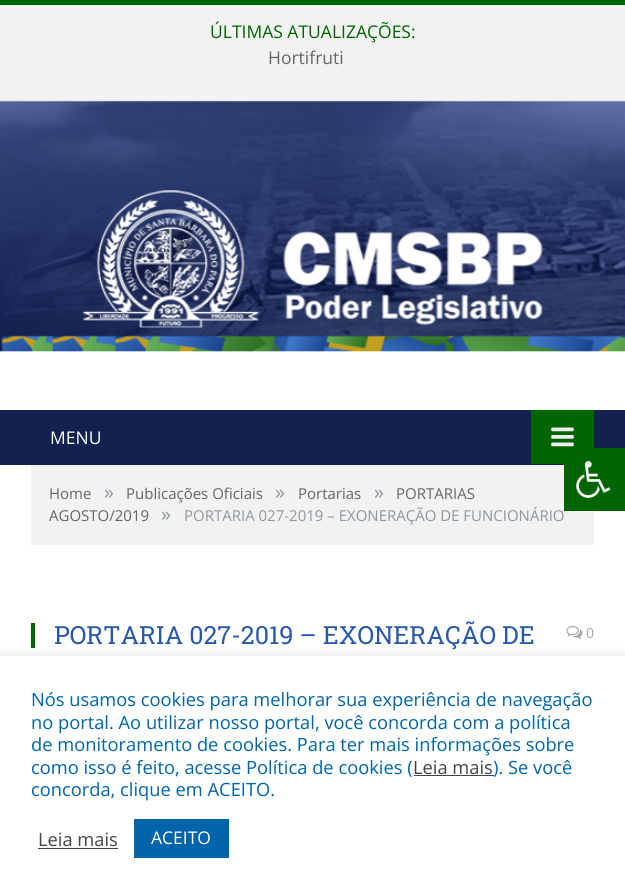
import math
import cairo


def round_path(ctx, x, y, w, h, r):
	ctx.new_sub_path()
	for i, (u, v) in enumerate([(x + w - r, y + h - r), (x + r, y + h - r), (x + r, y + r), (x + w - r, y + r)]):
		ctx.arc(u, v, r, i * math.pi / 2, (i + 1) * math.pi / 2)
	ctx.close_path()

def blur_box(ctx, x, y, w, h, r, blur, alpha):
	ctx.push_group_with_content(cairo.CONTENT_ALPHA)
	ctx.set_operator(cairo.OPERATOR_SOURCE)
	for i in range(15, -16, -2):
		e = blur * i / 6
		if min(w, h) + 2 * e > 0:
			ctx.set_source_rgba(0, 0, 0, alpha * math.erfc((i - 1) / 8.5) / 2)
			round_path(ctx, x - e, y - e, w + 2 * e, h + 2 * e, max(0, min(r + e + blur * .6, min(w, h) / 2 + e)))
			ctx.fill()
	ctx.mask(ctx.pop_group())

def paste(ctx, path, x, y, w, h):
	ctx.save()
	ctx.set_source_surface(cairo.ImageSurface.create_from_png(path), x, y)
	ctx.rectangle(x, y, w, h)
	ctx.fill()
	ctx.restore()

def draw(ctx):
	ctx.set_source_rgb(1, 1, 1)
	ctx.paint()
	ctx.set_source_rgb(0.949, 0.949, 0.949)
	ctx.rectangle(0, 5, 625, 95)
	ctx.fill()
	ctx.set_source_rgb(0, 0.392, 0)
	ctx.rectangle(0, 0, 625, 5)
	ctx.fill()
	ctx.set_source_rgb(0.906, 0.906, 0.906)
	ctx.rectangle(0, 100, 625, 1)
	ctx.fill()
	ctx.select_font_face('Open Sans')
	ctx.set_font_size(17.5)
	ctx.set_source_rgb(0, 0.392, 0)
	ctx.move_to(210, 38)
	ctx.show_text('ÚLTIMAS ATUALIZAÇÕES:')
	ctx.set_source_rgb(0.396, 0.396, 0.396)
	ctx.move_to(268, 64)
	ctx.show_text('Hortifruti')
	paste(ctx, 'media/1.png', 0, 101, 625, 251)
	paste(ctx, 'media/2.png', 83, 190, 460, 138)
	ctx.set_source_rgb(0.078, 0.129, 0.306)
	ctx.rectangle(0, 410, 625, 55)
	ctx.fill()
	ctx.set_source_rgb(1, 1, 1)
	ctx.move_to(50, 444)
	ctx.show_text('MENU')
	ctx.set_source_rgb(0, 0.392, 0)
	ctx.rectangle(531, 410, 63, 54)
	ctx.fill()
	paste(ctx, 'media/3.png', 551, 427, 23, 20)
	ctx.set_source_rgb(0.949, 0.949, 0.949)
	ctx.rectangle(31, 465, 563, 80)
	ctx.fill()
	ctx.set_font_size(15)
	ctx.set_source_rgb(0.396, 0.396, 0.396)
	ctx.move_to(49, 499)
	ctx.show_text('Home')
	ctx.set_font_size(20)
	ctx.set_source_rgb(0.553, 0.592, 0.631)
	ctx.move_to(104, 499)
	ctx.show_text('»')
	ctx.set_font_size(15)
	ctx.set_source_rgb(0.396, 0.396, 0.396)
	ctx.move_to(126, 499)
	ctx.show_text('Publicações Oficiais')
	ctx.set_font_size(20)
	ctx.set_source_rgb(0.553, 0.592, 0.631)
	ctx.move_to(275, 499)
	ctx.show_text('»')
	ctx.set_font_size(15)
	ctx.set_source_rgb(0.396, 0.396, 0.396)
	ctx.move_to(298, 499)
	ctx.show_text('Portarias')
	ctx.set_font_size(20)
	ctx.set_source_rgb(0.553, 0.592, 0.631)
	ctx.move_to(374, 499)
	ctx.show_text('»')
	ctx.set_font_size(15)
	ctx.set_source_rgb(0.396, 0.396, 0.396)
	ctx.move_to(396, 499)
	ctx.show_text('PORTARIAS')
	ctx.move_to(49, 521)
	ctx.show_text('AGOSTO/2019')
	ctx.set_font_size(20)
	ctx.set_source_rgb(0.553, 0.592, 0.631)
	ctx.move_to(161, 521)
	ctx.show_text('»')
	ctx.set_font_size(15)
	ctx.move_to(184, 521)
	ctx.show_text('PORTARIA 027-2019 – EXONERAÇÃO DE FUNCIONÁRIO')
	ctx.set_source_rgb(0, 0.392, 0)
	ctx.rectangle(31, 623, 4, 25)
	ctx.fill()
	ctx.select_font_face('Roboto Slab')
	ctx.set_font_size(25)
	ctx.set_source_rgb(0.161, 0.345, 0.671)
	ctx.move_to(54, 644)
	ctx.show_text('PORTARIA 027-2019 – EXONERAÇÃO DE')
	paste(ctx, 'media/4.png', 566, 625, 17, 14)
	ctx.select_font_face('Open Sans')
	ctx.set_font_size(14)
	ctx.set_source_rgb(0.651, 0.651, 0.651)
	ctx.move_to(586, 638)
	ctx.show_text('0')
	ctx.set_source_rgb(0, 0.392, 0)
	ctx.rectangle(564, 448, 61, 63)
	ctx.fill()
	paste(ctx, 'media/5.png', 576, 461, 35, 37)
	ctx.set_source_rgb(0.675, 0.671, 0.671)
	blur_box(ctx, 0, 655, 625, 239, 0, 6, 0.3)
	ctx.set_source_rgb(1, 1, 1)
	ctx.rectangle(0, 656, 625, 239)
	ctx.fill()
	ctx.set_font_size(18.3)
	ctx.set_source_rgb(0, 0.392, 0.671)
	for x, y, s in [
		(31, 706, 'Nós usamos cookies para melhorar sua experiência de navegação'),
		(31, 729, 'no portal. Ao utilizar nosso portal, você concorda com a política'),
		(31, 751, 'de monitoramento de cookies. Para ter mais informações sobre'),
		(31, 774, 'como isso é feito, acesse Política de cookies ('),
	]:
		ctx.move_to(x, y)
		ctx.show_text(s)
	ctx.set_source_rgb(0.267, 0.267, 0.267)
	ctx.move_to(413, 774)
	ctx.show_text('Leia mais')
	ctx.rectangle(414, 775, 80, 1)
	ctx.fill()
	ctx.set_source_rgb(0, 0.392, 0.671)
	ctx.move_to(493, 774)
	ctx.show_text('). Se você')
	ctx.move_to(31, 796)
	ctx.show_text('concorda, clique em ACEITO.')
	ctx.set_source_rgb(0.267, 0.267, 0.267)
	ctx.move_to(38, 846)
	ctx.show_text('Leia mais')
	ctx.rectangle(38, 848, 80, 1)
	ctx.fill()
	ctx.set_source_rgb(0, 0.392, 0.671)
	ctx.rectangle(134, 819, 95, 39)
	ctx.fill()
	ctx.set_font_size(17.5)
	ctx.set_source_rgb(1, 1, 1)
	ctx.move_to(151, 844)
	ctx.show_text('ACEITO')


surface = cairo.ImageSurface(cairo.FORMAT_RGB24, 625, 895)
ctx = cairo.Context(surface)
options = cairo.FontOptions()
options.set_hint_metrics(cairo.HINT_METRICS_OFF)
options.set_hint_style(cairo.HINT_STYLE_NONE)
ctx.set_font_options(options)
ctx.set_miter_limit(4)
draw(ctx)
surface.write_to_png('image.png')
